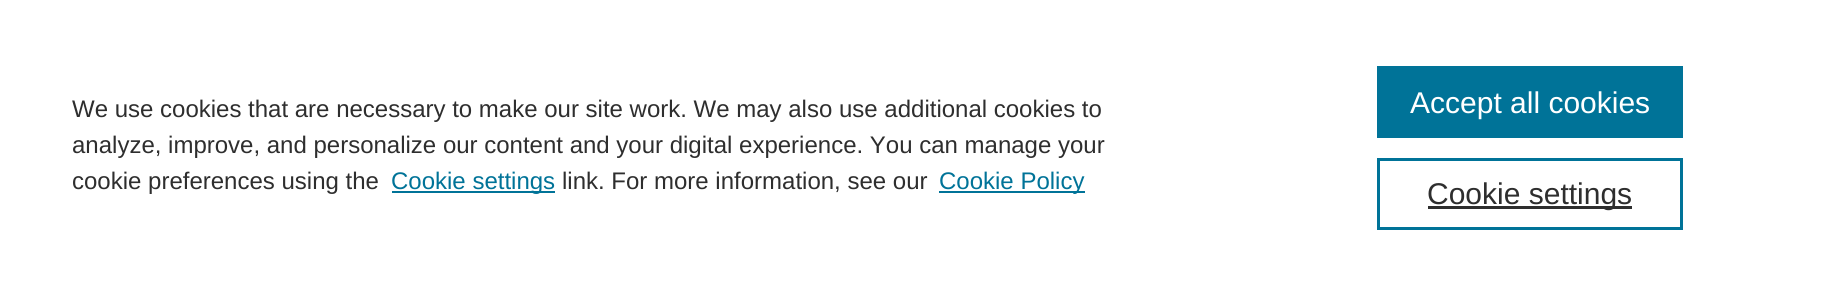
import math
import cairo


def draw(ctx):
	ctx.set_source_rgb(1, 1, 1)
	ctx.paint()
	ctx.select_font_face('Liberation Sans')
	ctx.set_font_size(24)
	ctx.set_source_rgb(0.18, 0.18, 0.18)
	for x, y, s in [
		(72, 117, 'We use cookies that are necessary to make our site work. We may also use additional cookies to'),
		(72, 153, 'analyze, improve, and personalize our content and your digital experience. You can manage your'),
		(72, 189, 'cookie preferences using the'),
	]:
		ctx.move_to(x, y)
		ctx.show_text(s)
	ctx.set_source_rgb(0, 0.451, 0.596)
	ctx.rectangle(392, 191, 163, 2)
	ctx.fill()
	ctx.move_to(391, 189)
	ctx.show_text('Cookie settings')
	ctx.set_source_rgb(0.18, 0.18, 0.18)
	ctx.move_to(562, 189)
	ctx.show_text('link. For more information, see our')
	ctx.set_source_rgb(0, 0.451, 0.596)
	ctx.rectangle(939, 191, 146, 2)
	ctx.fill()
	ctx.move_to(939, 189)
	ctx.show_text('Cookie Policy')
	ctx.rectangle(1377, 66, 306, 72)
	ctx.fill()
	ctx.set_font_size(30)
	ctx.set_source_rgb(1, 1, 1)
	ctx.move_to(1410, 113)
	ctx.show_text('Accept all cookies')
	ctx.rectangle(1378.5, 159.5, 303, 69)
	ctx.set_source_rgb(0, 0.451, 0.596)
	ctx.set_line_width(3)
	ctx.stroke()
	ctx.set_source_rgb(0.18, 0.18, 0.18)
	ctx.rectangle(1428, 206, 204, 3)
	ctx.fill()
	ctx.move_to(1427, 204)
	ctx.show_text('Cookie settings')


surface = cairo.ImageSurface(cairo.FORMAT_RGB24, 1834, 308)
ctx = cairo.Context(surface)
options = cairo.FontOptions()
options.set_hint_metrics(cairo.HINT_METRICS_OFF)
options.set_hint_style(cairo.HINT_STYLE_NONE)
ctx.set_font_options(options)
ctx.set_miter_limit(4)
draw(ctx)
surface.write_to_png('image.png')
